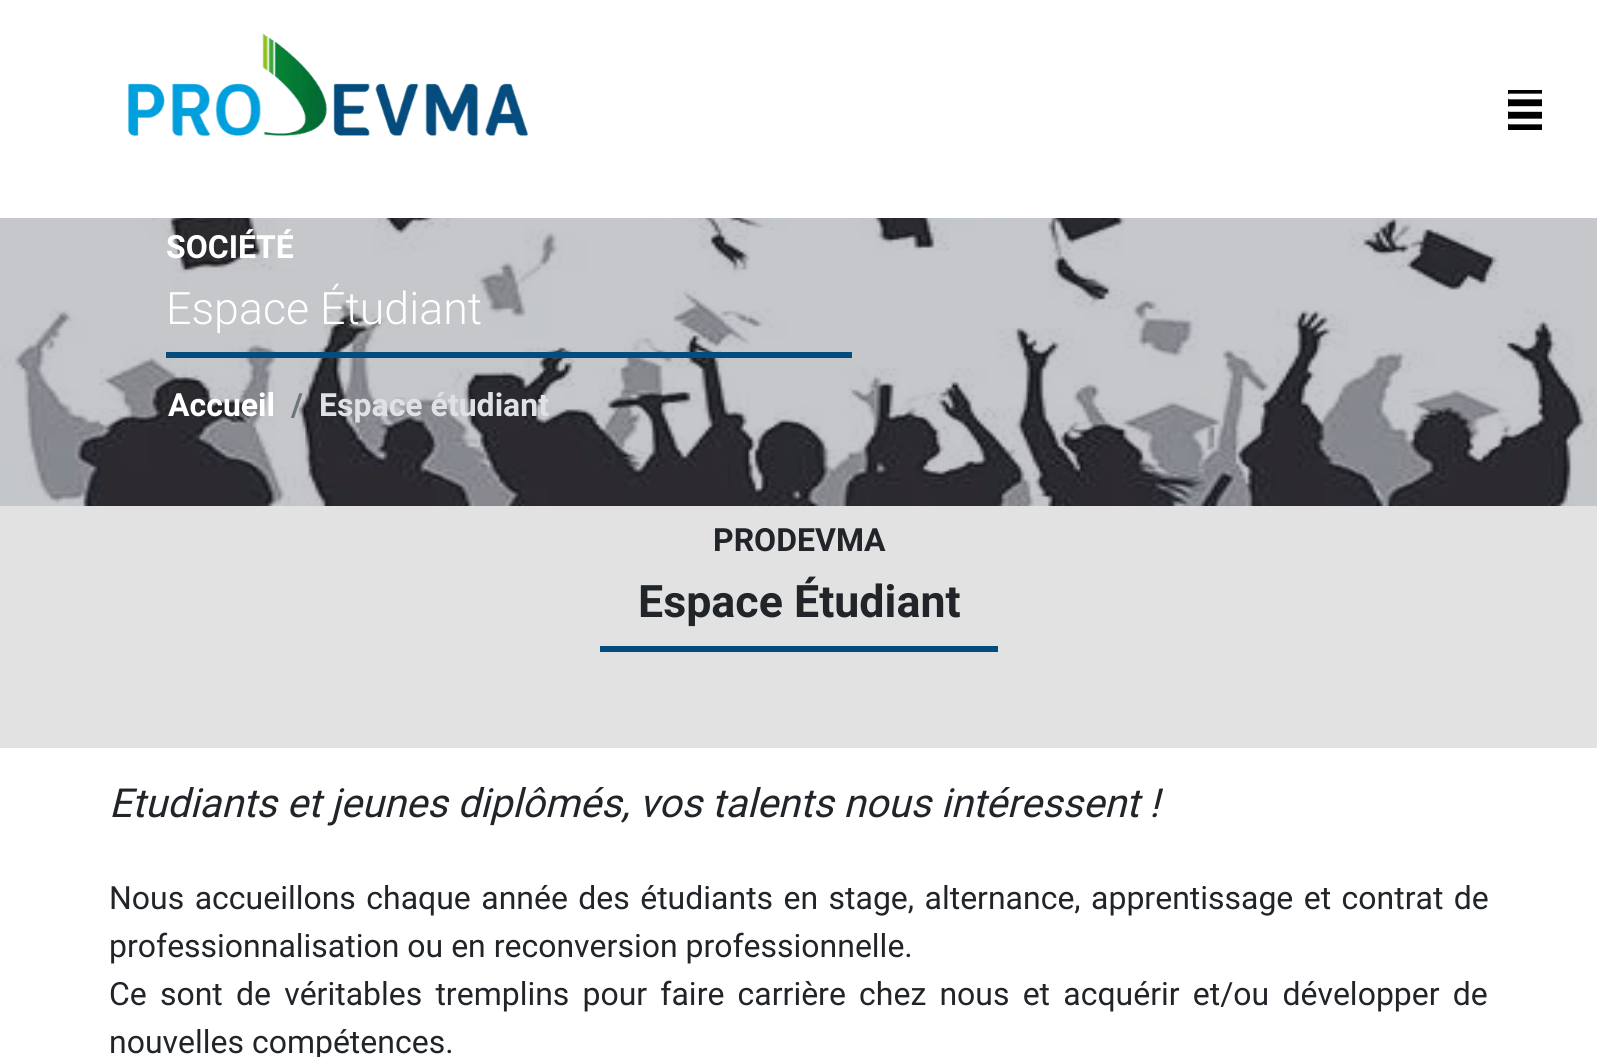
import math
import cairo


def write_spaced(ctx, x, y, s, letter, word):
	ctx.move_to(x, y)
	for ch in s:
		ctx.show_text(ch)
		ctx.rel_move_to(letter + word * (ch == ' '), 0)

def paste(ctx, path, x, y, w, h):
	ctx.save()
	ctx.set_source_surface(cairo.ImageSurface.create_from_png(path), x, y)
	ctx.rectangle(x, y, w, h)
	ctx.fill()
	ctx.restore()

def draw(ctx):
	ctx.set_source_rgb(1, 1, 1)
	ctx.paint()
	paste(ctx, 'media/1.png', 128, 34, 400, 102)
	ctx.set_source_rgb(0, 0, 0)
	ctx.rectangle(1508, 90, 34, 40)
	ctx.fill()
	paste(ctx, 'media/2.png', 1508, 93, 34, 32)
	paste(ctx, 'media/3.png', 0, 218, 1597, 288)
	ctx.select_font_face('Roboto', cairo.FONT_SLANT_NORMAL, cairo.FONT_WEIGHT_BOLD)
	ctx.set_font_size(32)
	ctx.set_source_rgb(1, 1, 1)
	ctx.move_to(166, 258)
	ctx.show_text('SOCIÉTÉ')
	ctx.select_font_face('Roboto Light')
	ctx.set_font_size(44.75)
	ctx.move_to(166, 324)
	ctx.show_text('Espace Étudiant')
	ctx.set_source_rgb(0.016, 0.298, 0.494)
	ctx.rectangle(166, 352, 686, 6)
	ctx.fill()
	ctx.select_font_face('Roboto', cairo.FONT_SLANT_NORMAL, cairo.FONT_WEIGHT_BOLD)
	ctx.set_font_size(32)
	ctx.set_source_rgb(1, 1, 1)
	ctx.move_to(168, 416)
	ctx.show_text('Accueil')
	ctx.set_source_rgb(0.424, 0.459, 0.49)
	ctx.move_to(291, 416)
	ctx.show_text('/')
	ctx.set_source_rgb(0.871, 0.886, 0.902)
	ctx.move_to(319, 416)
	ctx.show_text('Espace étudiant')
	ctx.set_source_rgb(0.886, 0.886, 0.886)
	ctx.rectangle(0, 506, 1597, 242)
	ctx.fill()
	ctx.set_source_rgb(0.129, 0.145, 0.161)
	ctx.move_to(713, 551)
	ctx.show_text('PRODEVMA')
	ctx.set_font_size(44.75)
	ctx.move_to(638, 617)
	ctx.show_text('Espace Étudiant')
	ctx.set_source_rgb(0.016, 0.298, 0.494)
	ctx.rectangle(600, 646, 398, 6)
	ctx.fill()
	ctx.select_font_face('Roboto', cairo.FONT_SLANT_ITALIC)
	ctx.set_font_size(40)
	ctx.set_source_rgb(0.129, 0.145, 0.161)
	ctx.move_to(109, 817)
	ctx.show_text('Etudiants et jeunes diplômés, vos talents nous intéressent !')
	ctx.select_font_face('Roboto')
	ctx.set_font_size(32)
	write_spaced(ctx, 109, 909, 'Nous accueillons chaque année des étudiants en stage, alternance, apprentissage et contrat de', 0, 2.5)
	ctx.move_to(109, 957)
	ctx.show_text('professionnalisation ou en reconversion professionnelle.')
	write_spaced(ctx, 109, 1005, 'Ce sont de véritables tremplins pour faire carrière chez nous et acquérir et/ou développer de', 0, 5.25)
	ctx.move_to(109, 1053)
	ctx.show_text('nouvelles compétences.')


surface = cairo.ImageSurface(cairo.FORMAT_RGB24, 1597, 1057)
ctx = cairo.Context(surface)
options = cairo.FontOptions()
options.set_hint_metrics(cairo.HINT_METRICS_OFF)
options.set_hint_style(cairo.HINT_STYLE_NONE)
ctx.set_font_options(options)
ctx.set_miter_limit(4)
draw(ctx)
surface.write_to_png('image.png')
